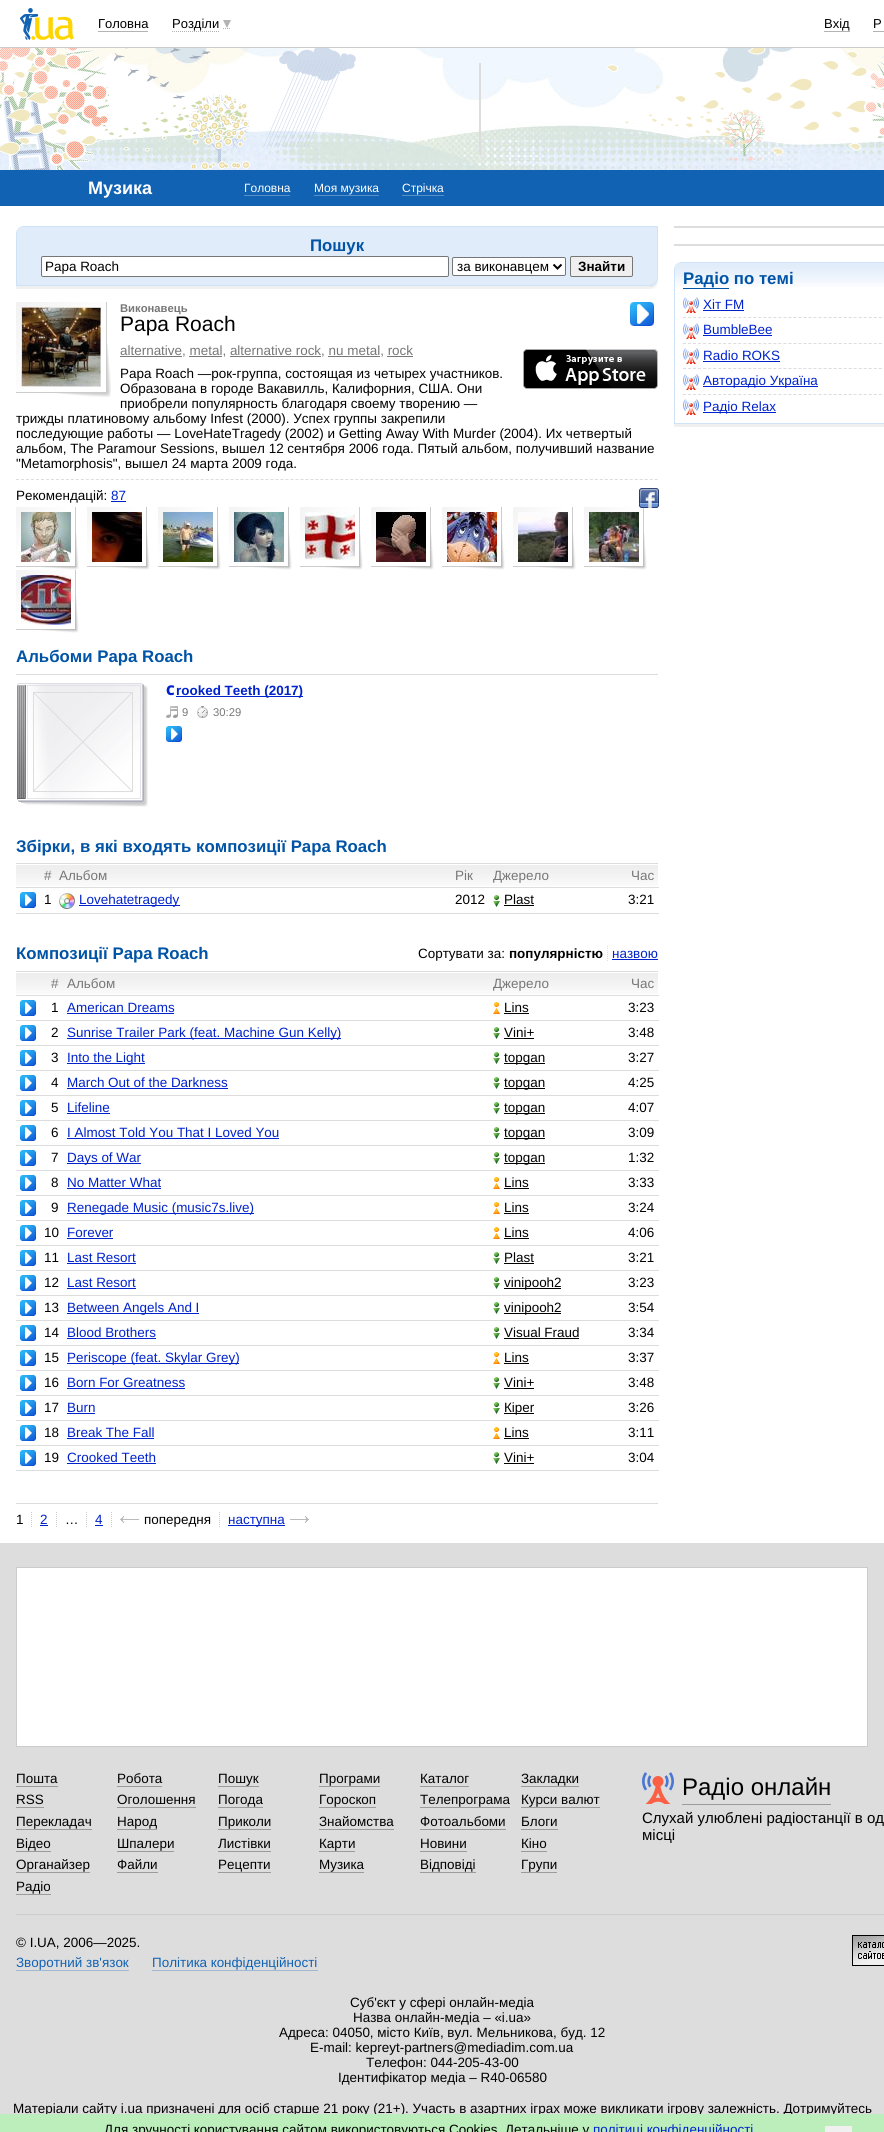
import math
import cairo


def round_path(ctx, x, y, w, h, r):
	ctx.new_sub_path()
	for i, (u, v) in enumerate([(x + w - r, y + h - r), (x + r, y + h - r), (x + r, y + r), (x + w - r, y + r)]):
		ctx.arc(u, v, r, i * math.pi / 2, (i + 1) * math.pi / 2)
	ctx.close_path()

def paste(ctx, path, x, y, w, h):
	ctx.save()
	ctx.set_source_surface(cairo.ImageSurface.create_from_png(path), x, y)
	ctx.rectangle(x, y, w, h)
	ctx.fill()
	ctx.restore()

def draw(ctx):
	ctx.set_source_rgb(1, 1, 1)
	ctx.paint()
	ctx.set_source_rgb(0.8, 0.8, 0.8)
	ctx.rectangle(0, 47, 884, 1)
	ctx.fill()
	paste(ctx, 'media/1.png', 20, 8, 54, 32)
	ctx.select_font_face('Liberation Sans')
	ctx.set_font_size(13)
	ctx.set_source_rgb(0, 0, 0)
	ctx.move_to(98, 28)
	ctx.show_text('Головна')
	ctx.set_source_rgb(0.702, 0.702, 0.702)
	ctx.rectangle(98, 31, 50, 1)
	ctx.fill()
	ctx.new_path()
	ctx.move_to(172, 31.5)
	ctx.line_to(219, 31.5)
	ctx.move_to(223, 28.5)
	ctx.line_to(231, 28.5)
	ctx.set_line_width(1)
	ctx.set_dash([1, 1])
	ctx.stroke()
	ctx.set_source_rgb(0, 0, 0)
	ctx.move_to(172, 28)
	ctx.show_text('Розділи')
	ctx.set_source_rgb(0.702, 0.702, 0.702)
	ctx.new_path()
	ctx.move_to(223, 20)
	ctx.line_to(231, 20)
	ctx.line_to(227, 28)
	ctx.close_path()
	ctx.fill()
	ctx.set_source_rgb(0, 0, 0)
	ctx.move_to(824, 28)
	ctx.show_text('Вхід')
	ctx.set_source_rgb(0.702, 0.702, 0.702)
	ctx.rectangle(824, 31, 26, 1)
	ctx.fill()
	ctx.set_source_rgb(0, 0, 0)
	ctx.move_to(873, 28)
	ctx.show_text('Р')
	ctx.set_source_rgb(0.702, 0.702, 0.702)
	ctx.rectangle(873, 31, 11, 1)
	ctx.fill()
	paste(ctx, 'media/2.png', 0, 48, 884, 122)
	ctx.set_source_rgb(0.867, 0.867, 0.867)
	ctx.rectangle(479, 63, 2, 92)
	ctx.fill()
	ctx.set_source_rgb(0.067, 0.384, 0.702)
	ctx.rectangle(0, 170, 884, 36)
	ctx.fill()
	ctx.select_font_face('Liberation Sans', cairo.FONT_SLANT_NORMAL, cairo.FONT_WEIGHT_BOLD)
	ctx.set_font_size(18)
	ctx.set_source_rgb(1, 1, 1)
	ctx.move_to(88, 194)
	ctx.show_text('Музика')
	ctx.select_font_face('Liberation Sans')
	ctx.set_font_size(12)
	ctx.move_to(244, 192)
	ctx.show_text('Головна')
	ctx.set_source_rgb(0.345, 0.569, 0.792)
	ctx.rectangle(244, 195, 46, 1)
	ctx.fill()
	ctx.set_source_rgb(1, 1, 1)
	ctx.move_to(314, 192)
	ctx.show_text('Моя музика')
	ctx.set_source_rgb(0.345, 0.569, 0.792)
	ctx.rectangle(314, 195, 65, 1)
	ctx.fill()
	ctx.set_source_rgb(1, 1, 1)
	ctx.move_to(402, 192)
	ctx.show_text('Стрічка')
	ctx.set_source_rgb(0.345, 0.569, 0.792)
	ctx.rectangle(402, 195, 42, 1)
	ctx.fill()
	ctx.set_source_rgb(0.941, 0.941, 0.941)
	ctx.rectangle(16, 286, 642, 3)
	ctx.fill()
	ctx.set_source_rgb(0.882, 0.925, 0.98)
	ctx.rectangle(16.5, 226.5, 641, 59)
	ctx.fill_preserve()
	ctx.set_source_rgb(0.808, 0.89, 0.969)
	ctx.set_dash([])
	ctx.stroke()
	paste(ctx, 'media/3.png', 16, 226, 7, 7)
	ctx.select_font_face('Liberation Sans', cairo.FONT_SLANT_NORMAL, cairo.FONT_WEIGHT_BOLD)
	ctx.set_font_size(16.8)
	ctx.set_source_rgb(0, 0.325, 0.647)
	ctx.move_to(310, 251)
	ctx.show_text('Пошук')
	ctx.set_source_rgb(1, 1, 1)
	round_path(ctx, 41.5, 256.5, 407, 20, 1.5)
	ctx.fill_preserve()
	ctx.set_source_rgb(0.463, 0.463, 0.463)
	ctx.stroke()
	ctx.select_font_face('Liberation Sans')
	ctx.set_font_size(13.45)
	ctx.set_source_rgb(0, 0, 0)
	ctx.move_to(45, 271)
	ctx.show_text('Papa Roach')
	ctx.set_source_rgb(1, 1, 1)
	round_path(ctx, 452.5, 257.5, 113, 18, 1.5)
	ctx.fill_preserve()
	ctx.set_source_rgb(0.463, 0.463, 0.463)
	ctx.stroke()
	ctx.new_path()
	ctx.move_to(553.5, 264.5)
	ctx.line_to(557.5, 268.5)
	ctx.line_to(561.5, 264.5)
	ctx.set_source_rgb(0, 0, 0)
	ctx.set_line_width(2)
	ctx.stroke()
	ctx.move_to(457, 271)
	ctx.show_text('за виконавцем')
	ctx.set_source_rgb(0.937, 0.937, 0.937)
	round_path(ctx, 570.5, 256.5, 62, 20, 1.5)
	ctx.fill_preserve()
	ctx.set_source_rgb(0.463, 0.463, 0.463)
	ctx.set_line_width(1)
	ctx.stroke()
	ctx.select_font_face('Liberation Sans', cairo.FONT_SLANT_NORMAL, cairo.FONT_WEIGHT_BOLD)
	ctx.set_source_rgb(0, 0, 0)
	ctx.move_to(578, 271)
	ctx.show_text('Знайти')
	paste(ctx, 'media/4.png', 650, 279, 8, 10)
	paste(ctx, 'media/5.png', 16, 302, 95, 95)
	paste(ctx, 'media/6.png', 21, 307, 80, 80)
	ctx.set_font_size(11.25)
	ctx.set_source_rgb(0.467, 0.467, 0.467)
	ctx.move_to(120, 312)
	ctx.show_text('Виконавець')
	paste(ctx, 'media/7.png', 630, 302, 24, 24)
	paste(ctx, 'media/8.png', 523, 349, 135, 40)
	ctx.select_font_face('Liberation Sans')
	ctx.set_font_size(21)
	ctx.set_source_rgb(0, 0, 0)
	ctx.move_to(120, 331)
	ctx.show_text('Papa Roach')
	ctx.set_source_rgb(0.467, 0.467, 0.467)
	ctx.rectangle(120, 356, 62, 1)
	ctx.fill()
	ctx.set_font_size(13.45)
	ctx.move_to(120, 355)
	ctx.show_text('alternative, metal, alternative rock, nu metal, rock')
	ctx.rectangle(189, 356, 33, 1)
	ctx.rectangle(230, 356, 91, 1)
	ctx.rectangle(328, 356, 52, 1)
	ctx.rectangle(387, 356, 26, 1)
	ctx.fill()
	ctx.set_source_rgb(0, 0, 0)
	for x, y, s in [
		(120, 378, 'Papa Roach —рок-группа, состоящая из четырех участников.'),
		(120, 393, 'Образована в городе Вакавилль, Калифорния, США. Они'),
		(120, 408, 'приобрели популярность благодаря своему творению —'),
		(16, 423, 'трижды платиновому альбому Infest (2000). Успех группы закрепили'),
		(16, 438, 'последующие работы — LoveHateTragedy (2002) и Getting Away With Murder (2004). Их четвертый'),
		(16, 453, 'альбом, The Paramour Sessions, вышел 12 сентября 2006 года. Пятый альбом, получивший название'),
		(16, 468, '"Metamorphosis", вышел 24 марта 2009 года.'),
	]:
		ctx.move_to(x, y)
		ctx.show_text(s)
	ctx.new_path()
	ctx.move_to(16, 479.5)
	ctx.line_to(658, 479.5)
	ctx.set_source_rgb(0.867, 0.867, 0.867)
	ctx.set_dash([3, 1.99])
	ctx.stroke()
	ctx.set_source_rgb(0, 0, 0)
	ctx.move_to(16, 500)
	ctx.show_text('Рекомендацій:')
	ctx.set_source_rgb(0, 0.133, 0.8)
	ctx.move_to(111, 500)
	ctx.show_text('87')
	ctx.rectangle(111, 501, 15, 1)
	ctx.fill()
	paste(ctx, 'media/9.png', 16, 507, 63, 63)
	paste(ctx, 'media/10.png', 21, 512, 50, 50)
	paste(ctx, 'media/9.png', 87, 507, 63, 63)
	paste(ctx, 'media/11.png', 92, 512, 50, 50)
	paste(ctx, 'media/9.png', 158, 507, 63, 63)
	paste(ctx, 'media/12.png', 163, 512, 50, 50)
	paste(ctx, 'media/9.png', 229, 507, 63, 63)
	paste(ctx, 'media/13.png', 234, 512, 50, 50)
	paste(ctx, 'media/9.png', 300, 507, 63, 63)
	paste(ctx, 'media/14.png', 305, 512, 50, 49)
	paste(ctx, 'media/9.png', 371, 507, 63, 63)
	paste(ctx, 'media/15.png', 376, 512, 50, 50)
	paste(ctx, 'media/9.png', 442, 507, 63, 63)
	paste(ctx, 'media/16.png', 447, 512, 50, 50)
	paste(ctx, 'media/9.png', 513, 507, 63, 63)
	paste(ctx, 'media/17.png', 518, 512, 50, 50)
	paste(ctx, 'media/9.png', 584, 507, 63, 63)
	paste(ctx, 'media/18.png', 589, 512, 50, 50)
	paste(ctx, 'media/9.png', 16, 570, 63, 63)
	paste(ctx, 'media/19.png', 21, 575, 50, 50)
	paste(ctx, 'media/20.png', 639, 488, 20, 20)
	ctx.select_font_face('Liberation Sans', cairo.FONT_SLANT_NORMAL, cairo.FONT_WEIGHT_BOLD)
	ctx.set_font_size(16.8)
	ctx.set_source_rgb(0, 0.325, 0.647)
	ctx.move_to(16, 662)
	ctx.show_text('Альбоми Papa Roach')
	ctx.set_source_rgb(0.867, 0.867, 0.867)
	ctx.rectangle(16, 674, 642, 1)
	ctx.fill()
	paste(ctx, 'media/21.png', 17, 683, 131, 124)
	paste(ctx, 'media/22.png', 33, 692, 100, 100)
	ctx.select_font_face('Noto Sans Black')
	ctx.set_font_size(13.45)
	ctx.set_source_rgb(0, 0.133, 0.8)
	ctx.move_to(166, 695)
	ctx.show_text('C')
	ctx.rectangle(176, 696, 127, 1)
	ctx.fill()
	ctx.select_font_face('Liberation Sans', cairo.FONT_SLANT_NORMAL, cairo.FONT_WEIGHT_BOLD)
	ctx.move_to(176, 695)
	ctx.show_text('rooked Teeth (2017)')
	paste(ctx, 'media/23.png', 166, 706, 12, 12)
	ctx.select_font_face('Liberation Sans')
	ctx.set_font_size(11.25)
	ctx.set_source_rgb(0.467, 0.467, 0.467)
	ctx.move_to(182, 716)
	ctx.show_text('9')
	paste(ctx, 'media/24.png', 197, 706, 11, 12)
	ctx.move_to(213, 716)
	ctx.show_text('30:29')
	paste(ctx, 'media/25.png', 166, 726, 16, 16)
	ctx.select_font_face('Liberation Sans', cairo.FONT_SLANT_NORMAL, cairo.FONT_WEIGHT_BOLD)
	ctx.set_font_size(16.8)
	ctx.set_source_rgb(0, 0.325, 0.647)
	ctx.move_to(16, 852)
	ctx.show_text('Збірки, в які входять композиції Papa Roach')
	ctx.set_source_rgb(0.867, 0.867, 0.867)
	ctx.rectangle(16, 863, 642, 1)
	ctx.fill()
	ctx.rectangle(16, 913, 643, 1)
	ctx.fill()
	paste(ctx, 'media/26.png', 16, 865, 24, 21)
	paste(ctx, 'media/27.png', 40, 865, 15, 21)
	ctx.select_font_face('Liberation Sans')
	ctx.set_font_size(13.45)
	ctx.set_source_rgb(0.467, 0.467, 0.467)
	ctx.move_to(44, 880)
	ctx.show_text('#')
	paste(ctx, 'media/28.png', 55, 865, 396, 21)
	ctx.move_to(59, 880)
	ctx.show_text('Альбом')
	paste(ctx, 'media/29.png', 451, 865, 38, 21)
	ctx.move_to(455, 880)
	ctx.show_text('Рік')
	paste(ctx, 'media/30.png', 489, 865, 135, 21)
	ctx.move_to(493, 880)
	ctx.show_text('Джерело')
	paste(ctx, 'media/31.png', 624, 865, 34, 21)
	ctx.set_source_rgb(0.867, 0.867, 0.867)
	ctx.rectangle(16, 887, 643, 1)
	ctx.fill()
	ctx.set_source_rgb(0.467, 0.467, 0.467)
	ctx.move_to(631, 880)
	ctx.show_text('Час')
	paste(ctx, 'media/25.png', 20, 892, 16, 16)
	ctx.set_source_rgb(0, 0, 0)
	ctx.move_to(44, 904)
	ctx.show_text('1')
	paste(ctx, 'media/32.png', 59, 893, 16, 16)
	ctx.set_source_rgb(0, 0.133, 0.8)
	ctx.rectangle(79, 905, 101, 1)
	ctx.fill()
	ctx.move_to(79, 904)
	ctx.show_text('Lovehatetragedy')
	ctx.set_source_rgb(0, 0, 0)
	ctx.move_to(455, 904)
	ctx.show_text('2012')
	paste(ctx, 'media/33.png', 493, 895, 7, 12)
	ctx.move_to(504, 904)
	ctx.show_text('Plast')
	ctx.rectangle(504, 905, 30, 1)
	ctx.fill()
	ctx.move_to(628, 904)
	ctx.show_text('3:21')
	ctx.select_font_face('Liberation Sans', cairo.FONT_SLANT_NORMAL, cairo.FONT_WEIGHT_BOLD)
	ctx.set_font_size(16.8)
	ctx.set_source_rgb(0, 0.325, 0.647)
	ctx.move_to(16, 959)
	ctx.show_text('Композиції Papa Roach')
	ctx.select_font_face('Liberation Sans')
	ctx.set_font_size(13.45)
	ctx.set_source_rgb(0, 0, 0)
	ctx.move_to(418, 958)
	ctx.show_text('Сортувати за:')
	ctx.new_path()
	ctx.move_to(607.5, 946)
	ctx.line_to(607.5, 961)
	ctx.set_source_rgb(0.867, 0.867, 0.867)
	ctx.set_dash([1, 1])
	ctx.stroke()
	ctx.select_font_face('Liberation Sans', cairo.FONT_SLANT_NORMAL, cairo.FONT_WEIGHT_BOLD)
	ctx.set_source_rgb(0, 0, 0)
	ctx.move_to(509, 958)
	ctx.show_text('популярністю')
	ctx.select_font_face('Liberation Sans')
	ctx.set_source_rgb(0, 0.133, 0.8)
	ctx.move_to(612, 958)
	ctx.show_text('назвою')
	ctx.rectangle(612, 959, 46, 1)
	ctx.fill()
	ctx.set_source_rgb(0.867, 0.867, 0.867)
	ctx.rectangle(16, 971, 642, 1)
	ctx.rectangle(16, 1470, 643, 1)
	ctx.fill()
	paste(ctx, 'media/26.png', 16, 973, 24, 21)
	paste(ctx, 'media/34.png', 40, 973, 23, 21)
	ctx.set_source_rgb(0.467, 0.467, 0.467)
	ctx.move_to(51, 988)
	ctx.show_text('#')
	paste(ctx, 'media/35.png', 63, 973, 426, 21)
	ctx.move_to(67, 988)
	ctx.show_text('Альбом')
	paste(ctx, 'media/30.png', 489, 973, 135, 21)
	ctx.move_to(493, 988)
	ctx.show_text('Джерело')
	paste(ctx, 'media/31.png', 624, 973, 34, 21)
	ctx.set_source_rgb(0.867, 0.867, 0.867)
	ctx.rectangle(16, 995, 643, 1)
	ctx.fill()
	ctx.set_source_rgb(0.467, 0.467, 0.467)
	ctx.move_to(631, 988)
	ctx.show_text('Час')
	paste(ctx, 'media/25.png', 20, 1000, 16, 16)
	ctx.set_source_rgb(0, 0, 0)
	ctx.move_to(51, 1012)
	ctx.show_text('1')
	ctx.set_source_rgb(0, 0.133, 0.8)
	ctx.move_to(67, 1012)
	ctx.show_text('American Dreams')
	ctx.rectangle(67, 1013, 107, 1)
	ctx.fill()
	paste(ctx, 'media/36.png', 493, 1002, 7, 12)
	ctx.set_source_rgb(0, 0, 0)
	ctx.move_to(504, 1012)
	ctx.show_text('Lins')
	ctx.rectangle(504, 1013, 25, 1)
	ctx.fill()
	ctx.set_source_rgb(0.867, 0.867, 0.867)
	ctx.rectangle(16, 1020, 643, 1)
	ctx.fill()
	ctx.set_source_rgb(0, 0, 0)
	ctx.move_to(628, 1012)
	ctx.show_text('3:23')
	paste(ctx, 'media/25.png', 20, 1025, 16, 16)
	ctx.move_to(51, 1037)
	ctx.show_text('2')
	ctx.set_source_rgb(0, 0.133, 0.8)
	ctx.rectangle(67, 1038, 274, 1)
	ctx.fill()
	ctx.move_to(67, 1037)
	ctx.show_text('Sunrise Trailer Park (feat. Machine Gun Kelly)')
	paste(ctx, 'media/33.png', 493, 1027, 7, 12)
	ctx.set_source_rgb(0, 0, 0)
	ctx.move_to(504, 1037)
	ctx.show_text('Vini+')
	ctx.rectangle(504, 1038, 30, 1)
	ctx.fill()
	ctx.set_source_rgb(0.867, 0.867, 0.867)
	ctx.rectangle(16, 1045, 643, 1)
	ctx.fill()
	ctx.set_source_rgb(0, 0, 0)
	ctx.move_to(628, 1037)
	ctx.show_text('3:48')
	paste(ctx, 'media/25.png', 20, 1050, 16, 16)
	ctx.move_to(51, 1062)
	ctx.show_text('3')
	ctx.set_source_rgb(0, 0.133, 0.8)
	ctx.rectangle(67, 1063, 78, 1)
	ctx.fill()
	ctx.move_to(67, 1062)
	ctx.show_text('Into the Light')
	paste(ctx, 'media/33.png', 493, 1052, 7, 12)
	ctx.set_source_rgb(0, 0, 0)
	ctx.rectangle(504, 1063, 41, 1)
	ctx.fill()
	ctx.move_to(504, 1062)
	ctx.show_text('topgan')
	ctx.set_source_rgb(0.867, 0.867, 0.867)
	ctx.rectangle(16, 1070, 643, 1)
	ctx.fill()
	ctx.set_source_rgb(0, 0, 0)
	ctx.move_to(628, 1062)
	ctx.show_text('3:27')
	paste(ctx, 'media/25.png', 20, 1075, 16, 16)
	ctx.move_to(51, 1087)
	ctx.show_text('4')
	ctx.set_source_rgb(0, 0.133, 0.8)
	ctx.move_to(67, 1087)
	ctx.show_text('March Out of the Darkness')
	ctx.rectangle(67, 1088, 161, 1)
	ctx.fill()
	paste(ctx, 'media/33.png', 493, 1077, 7, 12)
	ctx.set_source_rgb(0, 0, 0)
	ctx.rectangle(504, 1088, 41, 1)
	ctx.fill()
	ctx.move_to(504, 1087)
	ctx.show_text('topgan')
	ctx.set_source_rgb(0.867, 0.867, 0.867)
	ctx.rectangle(16, 1095, 643, 1)
	ctx.fill()
	ctx.set_source_rgb(0, 0, 0)
	ctx.move_to(628, 1087)
	ctx.show_text('4:25')
	paste(ctx, 'media/25.png', 20, 1100, 16, 16)
	ctx.move_to(51, 1112)
	ctx.show_text('5')
	ctx.set_source_rgb(0, 0.133, 0.8)
	ctx.move_to(67, 1112)
	ctx.show_text('Lifeline')
	ctx.rectangle(67, 1113, 43, 1)
	ctx.fill()
	paste(ctx, 'media/33.png', 493, 1102, 7, 12)
	ctx.set_source_rgb(0, 0, 0)
	ctx.rectangle(504, 1113, 41, 1)
	ctx.fill()
	ctx.move_to(504, 1112)
	ctx.show_text('topgan')
	ctx.set_source_rgb(0.867, 0.867, 0.867)
	ctx.rectangle(16, 1120, 643, 1)
	ctx.fill()
	ctx.set_source_rgb(0, 0, 0)
	ctx.move_to(628, 1112)
	ctx.show_text('4:07')
	paste(ctx, 'media/25.png', 20, 1125, 16, 16)
	ctx.move_to(51, 1137)
	ctx.show_text('6')
	ctx.set_source_rgb(0, 0.133, 0.8)
	ctx.move_to(67, 1137)
	ctx.show_text('I Almost Told You That I Loved You')
	ctx.rectangle(67, 1138, 212, 1)
	ctx.fill()
	paste(ctx, 'media/33.png', 493, 1127, 7, 12)
	ctx.set_source_rgb(0, 0, 0)
	ctx.rectangle(504, 1138, 41, 1)
	ctx.fill()
	ctx.move_to(504, 1137)
	ctx.show_text('topgan')
	ctx.set_source_rgb(0.867, 0.867, 0.867)
	ctx.rectangle(16, 1145, 643, 1)
	ctx.fill()
	ctx.set_source_rgb(0, 0, 0)
	ctx.move_to(628, 1137)
	ctx.show_text('3:09')
	paste(ctx, 'media/25.png', 20, 1150, 16, 16)
	ctx.move_to(51, 1162)
	ctx.show_text('7')
	ctx.set_source_rgb(0, 0.133, 0.8)
	ctx.rectangle(67, 1163, 74, 1)
	ctx.fill()
	ctx.move_to(67, 1162)
	ctx.show_text('Days of War')
	paste(ctx, 'media/33.png', 493, 1152, 7, 12)
	ctx.set_source_rgb(0, 0, 0)
	ctx.rectangle(504, 1163, 41, 1)
	ctx.fill()
	ctx.move_to(504, 1162)
	ctx.show_text('topgan')
	ctx.set_source_rgb(0.867, 0.867, 0.867)
	ctx.rectangle(16, 1170, 643, 1)
	ctx.fill()
	ctx.set_source_rgb(0, 0, 0)
	ctx.move_to(628, 1162)
	ctx.show_text('1:32')
	paste(ctx, 'media/25.png', 20, 1175, 16, 16)
	ctx.move_to(51, 1187)
	ctx.show_text('8')
	ctx.set_source_rgb(0, 0.133, 0.8)
	ctx.move_to(67, 1187)
	ctx.show_text('No Matter What')
	ctx.rectangle(67, 1188, 94, 1)
	ctx.fill()
	paste(ctx, 'media/36.png', 493, 1177, 7, 12)
	ctx.set_source_rgb(0, 0, 0)
	ctx.move_to(504, 1187)
	ctx.show_text('Lins')
	ctx.rectangle(504, 1188, 25, 1)
	ctx.fill()
	ctx.set_source_rgb(0.867, 0.867, 0.867)
	ctx.rectangle(16, 1195, 643, 1)
	ctx.fill()
	ctx.set_source_rgb(0, 0, 0)
	ctx.move_to(628, 1187)
	ctx.show_text('3:33')
	paste(ctx, 'media/25.png', 20, 1200, 16, 16)
	ctx.move_to(51, 1212)
	ctx.show_text('9')
	ctx.set_source_rgb(0, 0.133, 0.8)
	ctx.rectangle(67, 1213, 187, 1)
	ctx.fill()
	ctx.move_to(67, 1212)
	ctx.show_text('Renegade Music (music7s.live)')
	paste(ctx, 'media/36.png', 493, 1202, 7, 12)
	ctx.set_source_rgb(0, 0, 0)
	ctx.move_to(504, 1212)
	ctx.show_text('Lins')
	ctx.rectangle(504, 1213, 25, 1)
	ctx.fill()
	ctx.set_source_rgb(0.867, 0.867, 0.867)
	ctx.rectangle(16, 1220, 643, 1)
	ctx.fill()
	ctx.set_source_rgb(0, 0, 0)
	ctx.move_to(628, 1212)
	ctx.show_text('3:24')
	paste(ctx, 'media/25.png', 20, 1225, 16, 16)
	ctx.move_to(44, 1237)
	ctx.show_text('10')
	ctx.set_source_rgb(0, 0.133, 0.8)
	ctx.move_to(67, 1237)
	ctx.show_text('Forever')
	ctx.rectangle(67, 1238, 46, 1)
	ctx.fill()
	paste(ctx, 'media/36.png', 493, 1227, 7, 12)
	ctx.set_source_rgb(0, 0, 0)
	ctx.move_to(504, 1237)
	ctx.show_text('Lins')
	ctx.rectangle(504, 1238, 25, 1)
	ctx.fill()
	ctx.set_source_rgb(0.867, 0.867, 0.867)
	ctx.rectangle(16, 1245, 643, 1)
	ctx.fill()
	ctx.set_source_rgb(0, 0, 0)
	ctx.move_to(628, 1237)
	ctx.show_text('4:06')
	paste(ctx, 'media/25.png', 20, 1250, 16, 16)
	ctx.move_to(44, 1262)
	ctx.show_text('11')
	ctx.set_source_rgb(0, 0.133, 0.8)
	ctx.move_to(67, 1262)
	ctx.show_text('Last Resort')
	ctx.rectangle(67, 1263, 69, 1)
	ctx.fill()
	paste(ctx, 'media/33.png', 493, 1252, 7, 12)
	ctx.set_source_rgb(0, 0, 0)
	ctx.move_to(504, 1262)
	ctx.show_text('Plast')
	ctx.rectangle(504, 1263, 30, 1)
	ctx.fill()
	ctx.set_source_rgb(0.867, 0.867, 0.867)
	ctx.rectangle(16, 1270, 643, 1)
	ctx.fill()
	ctx.set_source_rgb(0, 0, 0)
	ctx.move_to(628, 1262)
	ctx.show_text('3:21')
	paste(ctx, 'media/25.png', 20, 1275, 16, 16)
	ctx.move_to(44, 1287)
	ctx.show_text('12')
	ctx.set_source_rgb(0, 0.133, 0.8)
	ctx.move_to(67, 1287)
	ctx.show_text('Last Resort')
	ctx.rectangle(67, 1288, 69, 1)
	ctx.fill()
	paste(ctx, 'media/33.png', 493, 1277, 7, 12)
	ctx.set_source_rgb(0, 0, 0)
	ctx.rectangle(504, 1288, 57, 1)
	ctx.fill()
	ctx.move_to(504, 1287)
	ctx.show_text('vinipooh2')
	ctx.set_source_rgb(0.867, 0.867, 0.867)
	ctx.rectangle(16, 1295, 643, 1)
	ctx.fill()
	ctx.set_source_rgb(0, 0, 0)
	ctx.move_to(628, 1287)
	ctx.show_text('3:23')
	paste(ctx, 'media/25.png', 20, 1300, 16, 16)
	ctx.move_to(44, 1312)
	ctx.show_text('13')
	ctx.set_source_rgb(0, 0.133, 0.8)
	ctx.rectangle(67, 1313, 132, 1)
	ctx.fill()
	ctx.move_to(67, 1312)
	ctx.show_text('Between Angels And I')
	paste(ctx, 'media/33.png', 493, 1302, 7, 12)
	ctx.set_source_rgb(0, 0, 0)
	ctx.rectangle(504, 1313, 57, 1)
	ctx.fill()
	ctx.move_to(504, 1312)
	ctx.show_text('vinipooh2')
	ctx.set_source_rgb(0.867, 0.867, 0.867)
	ctx.rectangle(16, 1320, 643, 1)
	ctx.fill()
	ctx.set_source_rgb(0, 0, 0)
	ctx.move_to(628, 1312)
	ctx.show_text('3:54')
	paste(ctx, 'media/25.png', 20, 1325, 16, 16)
	ctx.move_to(44, 1337)
	ctx.show_text('14')
	ctx.set_source_rgb(0, 0.133, 0.8)
	ctx.move_to(67, 1337)
	ctx.show_text('Blood Brothers')
	ctx.rectangle(67, 1338, 89, 1)
	ctx.fill()
	paste(ctx, 'media/33.png', 493, 1327, 7, 12)
	ctx.set_source_rgb(0, 0, 0)
	ctx.move_to(504, 1337)
	ctx.show_text('Visual Fraud')
	ctx.rectangle(504, 1338, 75, 1)
	ctx.fill()
	ctx.set_source_rgb(0.867, 0.867, 0.867)
	ctx.rectangle(16, 1345, 643, 1)
	ctx.fill()
	ctx.set_source_rgb(0, 0, 0)
	ctx.move_to(628, 1337)
	ctx.show_text('3:34')
	paste(ctx, 'media/25.png', 20, 1350, 16, 16)
	ctx.move_to(44, 1362)
	ctx.show_text('15')
	ctx.set_source_rgb(0, 0.133, 0.8)
	ctx.rectangle(67, 1363, 172, 1)
	ctx.fill()
	ctx.move_to(67, 1362)
	ctx.show_text('Periscope (feat. Skylar Grey)')
	paste(ctx, 'media/36.png', 493, 1352, 7, 12)
	ctx.set_source_rgb(0, 0, 0)
	ctx.move_to(504, 1362)
	ctx.show_text('Lins')
	ctx.rectangle(504, 1363, 25, 1)
	ctx.fill()
	ctx.set_source_rgb(0.867, 0.867, 0.867)
	ctx.rectangle(16, 1370, 643, 1)
	ctx.fill()
	ctx.set_source_rgb(0, 0, 0)
	ctx.move_to(628, 1362)
	ctx.show_text('3:37')
	paste(ctx, 'media/25.png', 20, 1375, 16, 16)
	ctx.move_to(44, 1387)
	ctx.show_text('16')
	ctx.set_source_rgb(0, 0.133, 0.8)
	ctx.move_to(67, 1387)
	ctx.show_text('Born For Greatness')
	ctx.rectangle(67, 1388, 118, 1)
	ctx.fill()
	paste(ctx, 'media/33.png', 493, 1377, 7, 12)
	ctx.set_source_rgb(0, 0, 0)
	ctx.move_to(504, 1387)
	ctx.show_text('Vini+')
	ctx.rectangle(504, 1388, 30, 1)
	ctx.fill()
	ctx.set_source_rgb(0.867, 0.867, 0.867)
	ctx.rectangle(16, 1395, 643, 1)
	ctx.fill()
	ctx.set_source_rgb(0, 0, 0)
	ctx.move_to(628, 1387)
	ctx.show_text('3:48')
	paste(ctx, 'media/25.png', 20, 1400, 16, 16)
	ctx.move_to(44, 1412)
	ctx.show_text('17')
	ctx.set_source_rgb(0, 0.133, 0.8)
	ctx.move_to(67, 1412)
	ctx.show_text('Burn')
	ctx.rectangle(67, 1413, 28, 1)
	ctx.fill()
	paste(ctx, 'media/33.png', 493, 1402, 7, 12)
	ctx.set_source_rgb(0, 0, 0)
	ctx.rectangle(504, 1413, 30, 1)
	ctx.fill()
	ctx.move_to(504, 1412)
	ctx.show_text('Кіреr')
	ctx.set_source_rgb(0.867, 0.867, 0.867)
	ctx.rectangle(16, 1420, 643, 1)
	ctx.fill()
	ctx.set_source_rgb(0, 0, 0)
	ctx.move_to(628, 1412)
	ctx.show_text('3:26')
	paste(ctx, 'media/25.png', 20, 1425, 16, 16)
	ctx.move_to(44, 1437)
	ctx.show_text('18')
	ctx.set_source_rgb(0, 0.133, 0.8)
	ctx.move_to(67, 1437)
	ctx.show_text('Break The Fall')
	ctx.rectangle(67, 1438, 87, 1)
	ctx.fill()
	paste(ctx, 'media/36.png', 493, 1427, 7, 12)
	ctx.set_source_rgb(0, 0, 0)
	ctx.move_to(504, 1437)
	ctx.show_text('Lins')
	ctx.rectangle(504, 1438, 25, 1)
	ctx.fill()
	ctx.set_source_rgb(0.867, 0.867, 0.867)
	ctx.rectangle(16, 1445, 643, 1)
	ctx.fill()
	ctx.set_source_rgb(0, 0, 0)
	ctx.move_to(628, 1437)
	ctx.show_text('3:11')
	paste(ctx, 'media/25.png', 20, 1450, 16, 16)
	ctx.move_to(44, 1462)
	ctx.show_text('19')
	ctx.set_source_rgb(0, 0.133, 0.8)
	ctx.move_to(67, 1462)
	ctx.show_text('Crooked Teeth')
	ctx.rectangle(67, 1463, 89, 1)
	ctx.fill()
	paste(ctx, 'media/33.png', 493, 1452, 7, 12)
	ctx.set_source_rgb(0, 0, 0)
	ctx.move_to(504, 1462)
	ctx.show_text('Vini+')
	ctx.rectangle(504, 1463, 30, 1)
	ctx.fill()
	ctx.move_to(628, 1462)
	ctx.show_text('3:04')
	ctx.set_source_rgb(0.867, 0.867, 0.867)
	ctx.rectangle(16, 1503, 642, 1)
	ctx.fill()
	ctx.new_path()
	ctx.move_to(31.5, 1512)
	ctx.line_to(31.5, 1527)
	ctx.set_source_rgb(0.8, 0.8, 0.8)
	ctx.stroke()
	ctx.set_source_rgb(0, 0, 0)
	ctx.move_to(16, 1524)
	ctx.show_text('1')
	ctx.new_path()
	ctx.move_to(56.5, 1512)
	ctx.line_to(56.5, 1527)
	ctx.set_source_rgb(0.8, 0.8, 0.8)
	ctx.stroke()
	ctx.set_source_rgb(0, 0.133, 0.8)
	ctx.move_to(40, 1524)
	ctx.show_text('2')
	ctx.rectangle(40, 1525, 8, 1)
	ctx.fill()
	ctx.new_path()
	ctx.move_to(86.5, 1512)
	ctx.line_to(86.5, 1527)
	ctx.set_source_rgb(0.8, 0.8, 0.8)
	ctx.stroke()
	ctx.set_source_rgb(0, 0, 0)
	ctx.move_to(65, 1524)
	ctx.show_text('…')
	ctx.new_path()
	ctx.move_to(111.5, 1512)
	ctx.line_to(111.5, 1527)
	ctx.set_source_rgb(0.8, 0.8, 0.8)
	ctx.stroke()
	ctx.set_source_rgb(0, 0.133, 0.8)
	ctx.move_to(95, 1524)
	ctx.show_text('4')
	ctx.rectangle(95, 1525, 8, 1)
	ctx.fill()
	ctx.new_path()
	ctx.move_to(219.5, 1512)
	ctx.line_to(219.5, 1527)
	ctx.set_source_rgb(0.8, 0.8, 0.8)
	ctx.stroke()
	paste(ctx, 'media/37.png', 120, 1516, 19, 7)
	ctx.set_source_rgb(0, 0, 0)
	ctx.move_to(144, 1524)
	ctx.show_text('попередня')
	ctx.set_source_rgb(0, 0.133, 0.8)
	ctx.rectangle(228, 1525, 57, 1)
	ctx.fill()
	ctx.move_to(228, 1524)
	ctx.show_text('наступна')
	paste(ctx, 'media/38.png', 290, 1516, 19, 7)
	ctx.set_source_rgb(0.867, 0.867, 0.867)
	ctx.rectangle(674, 226, 210, 2)
	ctx.rectangle(674, 244, 210, 2)
	ctx.fill()
	ctx.set_source_rgb(0.941, 0.941, 0.941)
	ctx.rectangle(674, 424, 210, 3)
	ctx.fill()
	paste(ctx, 'media/40.png', 675, 263, 209, 24)
	ctx.rectangle(674.5, 262.5, 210, 161)
	ctx.set_source_rgb(0.808, 0.89, 0.969)
	ctx.set_dash([])
	ctx.stroke()
	paste(ctx, 'media/39.png', 674, 262, 7, 7)
	ctx.select_font_face('Liberation Sans', cairo.FONT_SLANT_NORMAL, cairo.FONT_WEIGHT_BOLD)
	ctx.set_font_size(16.8)
	ctx.set_source_rgb(0, 0.325, 0.647)
	ctx.move_to(683, 284)
	ctx.show_text('Радіо по темі')
	ctx.rectangle(683, 288, 46, 1)
	ctx.fill()
	ctx.new_path()
	ctx.move_to(683, 317.5)
	ctx.line_to(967, 317.5)
	ctx.set_source_rgb(0.867, 0.867, 0.867)
	ctx.set_dash([3, 2.02])
	ctx.stroke()
	paste(ctx, 'media/41.png', 683, 297, 16, 16)
	ctx.select_font_face('Liberation Sans')
	ctx.set_font_size(13.45)
	ctx.set_source_rgb(0, 0.133, 0.8)
	ctx.move_to(703, 309)
	ctx.show_text('Хіт FM')
	ctx.rectangle(703, 310, 41, 1)
	ctx.fill()
	ctx.new_path()
	ctx.move_to(683, 343.5)
	ctx.line_to(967, 343.5)
	ctx.set_source_rgb(0.867, 0.867, 0.867)
	ctx.stroke()
	paste(ctx, 'media/41.png', 683, 323, 16, 16)
	ctx.set_source_rgb(0, 0.133, 0.8)
	ctx.move_to(703, 334)
	ctx.show_text('BumbleBee')
	ctx.rectangle(703, 335, 69, 1)
	ctx.fill()
	ctx.new_path()
	ctx.move_to(683, 368.5)
	ctx.line_to(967, 368.5)
	ctx.set_source_rgb(0.867, 0.867, 0.867)
	ctx.stroke()
	paste(ctx, 'media/41.png', 683, 348, 16, 16)
	ctx.set_source_rgb(0, 0.133, 0.8)
	ctx.move_to(703, 360)
	ctx.show_text('Radio ROKS')
	ctx.rectangle(703, 361, 77, 1)
	ctx.fill()
	ctx.new_path()
	ctx.move_to(683, 394.5)
	ctx.line_to(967, 394.5)
	ctx.set_source_rgb(0.867, 0.867, 0.867)
	ctx.stroke()
	paste(ctx, 'media/41.png', 683, 374, 16, 16)
	ctx.set_source_rgb(0, 0.133, 0.8)
	ctx.rectangle(703, 386, 115, 1)
	ctx.fill()
	ctx.move_to(703, 385)
	ctx.show_text('Авторадіо Україна')
	paste(ctx, 'media/41.png', 683, 399, 16, 16)
	ctx.rectangle(703, 412, 73, 1)
	ctx.fill()
	ctx.move_to(703, 411)
	ctx.show_text('Радіо Relax')
	ctx.set_source_rgb(0.867, 0.867, 0.867)
	ctx.rectangle(0, 1543, 884, 571)
	ctx.fill()
	ctx.set_source_rgb(1, 1, 1)
	ctx.rectangle(16.5, 1567.5, 851, 179)
	ctx.fill_preserve()
	ctx.set_source_rgb(0.8, 0.8, 0.8)
	ctx.set_dash([])
	ctx.stroke()
	ctx.set_source_rgb(0, 0, 0)
	ctx.move_to(16, 1783)
	ctx.show_text('Пошта')
	ctx.set_source_rgb(0.608, 0.608, 0.608)
	ctx.rectangle(16, 1786, 42, 1)
	ctx.fill()
	ctx.set_source_rgb(0, 0, 0)
	ctx.move_to(117, 1783)
	ctx.show_text('Робота')
	ctx.set_source_rgb(0.608, 0.608, 0.608)
	ctx.rectangle(117, 1786, 45, 1)
	ctx.fill()
	ctx.set_source_rgb(0, 0, 0)
	ctx.move_to(218, 1783)
	ctx.show_text('Пошук')
	ctx.set_source_rgb(0.608, 0.608, 0.608)
	ctx.rectangle(218, 1786, 41, 1)
	ctx.fill()
	ctx.set_source_rgb(0, 0, 0)
	ctx.move_to(319, 1783)
	ctx.show_text('Програми')
	ctx.set_source_rgb(0.608, 0.608, 0.608)
	ctx.rectangle(319, 1786, 61, 1)
	ctx.fill()
	ctx.set_source_rgb(0, 0, 0)
	ctx.move_to(420, 1783)
	ctx.show_text('Каталог')
	ctx.set_source_rgb(0.608, 0.608, 0.608)
	ctx.rectangle(420, 1786, 49, 1)
	ctx.fill()
	ctx.set_source_rgb(0, 0, 0)
	ctx.move_to(521, 1783)
	ctx.show_text('Закладки')
	ctx.set_source_rgb(0.608, 0.608, 0.608)
	ctx.rectangle(521, 1786, 58, 1)
	ctx.fill()
	ctx.set_source_rgb(0, 0, 0)
	ctx.move_to(16, 1804)
	ctx.show_text('RSS')
	ctx.set_source_rgb(0.608, 0.608, 0.608)
	ctx.rectangle(16, 1807, 28, 1)
	ctx.fill()
	ctx.set_source_rgb(0, 0, 0)
	ctx.move_to(117, 1804)
	ctx.show_text('Оголошення')
	ctx.set_source_rgb(0.608, 0.608, 0.608)
	ctx.rectangle(117, 1807, 79, 1)
	ctx.fill()
	ctx.set_source_rgb(0, 0, 0)
	ctx.move_to(218, 1804)
	ctx.show_text('Погода')
	ctx.set_source_rgb(0.608, 0.608, 0.608)
	ctx.rectangle(218, 1807, 45, 1)
	ctx.fill()
	ctx.set_source_rgb(0, 0, 0)
	ctx.move_to(319, 1804)
	ctx.show_text('Гороскоп')
	ctx.set_source_rgb(0.608, 0.608, 0.608)
	ctx.rectangle(319, 1807, 57, 1)
	ctx.fill()
	ctx.set_source_rgb(0, 0, 0)
	ctx.move_to(420, 1804)
	ctx.show_text('Телепрограма')
	ctx.set_source_rgb(0.608, 0.608, 0.608)
	ctx.rectangle(420, 1807, 90, 1)
	ctx.fill()
	ctx.set_source_rgb(0, 0, 0)
	ctx.move_to(521, 1804)
	ctx.show_text('Курси валют')
	ctx.set_source_rgb(0.608, 0.608, 0.608)
	ctx.rectangle(521, 1807, 79, 1)
	ctx.fill()
	ctx.set_source_rgb(0, 0, 0)
	ctx.move_to(16, 1826)
	ctx.show_text('Перекладач')
	ctx.set_source_rgb(0.608, 0.608, 0.608)
	ctx.rectangle(16, 1829, 76, 1)
	ctx.fill()
	ctx.set_source_rgb(0, 0, 0)
	ctx.move_to(117, 1826)
	ctx.show_text('Народ')
	ctx.set_source_rgb(0.608, 0.608, 0.608)
	ctx.rectangle(117, 1829, 40, 1)
	ctx.fill()
	ctx.set_source_rgb(0, 0, 0)
	ctx.move_to(218, 1826)
	ctx.show_text('Приколи')
	ctx.set_source_rgb(0.608, 0.608, 0.608)
	ctx.rectangle(218, 1829, 53, 1)
	ctx.fill()
	ctx.set_source_rgb(0, 0, 0)
	ctx.move_to(319, 1826)
	ctx.show_text('Знайомства')
	ctx.set_source_rgb(0.608, 0.608, 0.608)
	ctx.rectangle(319, 1829, 75, 1)
	ctx.fill()
	ctx.set_source_rgb(0, 0, 0)
	ctx.move_to(420, 1826)
	ctx.show_text('Фотоальбоми')
	ctx.set_source_rgb(0.608, 0.608, 0.608)
	ctx.rectangle(420, 1829, 86, 1)
	ctx.fill()
	ctx.set_source_rgb(0, 0, 0)
	ctx.move_to(521, 1826)
	ctx.show_text('Блоги')
	ctx.set_source_rgb(0.608, 0.608, 0.608)
	ctx.rectangle(521, 1829, 37, 1)
	ctx.fill()
	ctx.set_source_rgb(0, 0, 0)
	ctx.move_to(16, 1848)
	ctx.show_text('Відео')
	ctx.set_source_rgb(0.608, 0.608, 0.608)
	ctx.rectangle(16, 1851, 35, 1)
	ctx.fill()
	ctx.set_source_rgb(0, 0, 0)
	ctx.move_to(117, 1848)
	ctx.show_text('Шпалери')
	ctx.set_source_rgb(0.608, 0.608, 0.608)
	ctx.rectangle(117, 1851, 57, 1)
	ctx.fill()
	ctx.set_source_rgb(0, 0, 0)
	ctx.move_to(218, 1848)
	ctx.show_text('Листівки')
	ctx.set_source_rgb(0.608, 0.608, 0.608)
	ctx.rectangle(218, 1851, 53, 1)
	ctx.fill()
	ctx.set_source_rgb(0, 0, 0)
	ctx.move_to(319, 1848)
	ctx.show_text('Карти')
	ctx.set_source_rgb(0.608, 0.608, 0.608)
	ctx.rectangle(319, 1851, 36, 1)
	ctx.fill()
	ctx.set_source_rgb(0, 0, 0)
	ctx.move_to(420, 1848)
	ctx.show_text('Новини')
	ctx.set_source_rgb(0.608, 0.608, 0.608)
	ctx.rectangle(420, 1851, 47, 1)
	ctx.fill()
	ctx.set_source_rgb(0, 0, 0)
	ctx.move_to(521, 1848)
	ctx.show_text('Кіно')
	ctx.set_source_rgb(0.608, 0.608, 0.608)
	ctx.rectangle(521, 1851, 26, 1)
	ctx.fill()
	ctx.set_source_rgb(0, 0, 0)
	ctx.move_to(16, 1869)
	ctx.show_text('Органайзер')
	ctx.set_source_rgb(0.608, 0.608, 0.608)
	ctx.rectangle(16, 1872, 74, 1)
	ctx.fill()
	ctx.set_source_rgb(0, 0, 0)
	ctx.move_to(117, 1869)
	ctx.show_text('Файли')
	ctx.set_source_rgb(0.608, 0.608, 0.608)
	ctx.rectangle(117, 1872, 41, 1)
	ctx.fill()
	ctx.set_source_rgb(0, 0, 0)
	ctx.move_to(218, 1869)
	ctx.show_text('Рецепти')
	ctx.set_source_rgb(0.608, 0.608, 0.608)
	ctx.rectangle(218, 1872, 53, 1)
	ctx.fill()
	ctx.set_source_rgb(0, 0, 0)
	ctx.move_to(319, 1869)
	ctx.show_text('Музика')
	ctx.set_source_rgb(0.608, 0.608, 0.608)
	ctx.rectangle(319, 1872, 45, 1)
	ctx.fill()
	ctx.set_source_rgb(0, 0, 0)
	ctx.move_to(420, 1869)
	ctx.show_text('Відповіді')
	ctx.set_source_rgb(0.608, 0.608, 0.608)
	ctx.rectangle(420, 1872, 56, 1)
	ctx.fill()
	ctx.set_source_rgb(0, 0, 0)
	ctx.move_to(521, 1869)
	ctx.show_text('Групи')
	ctx.set_source_rgb(0.608, 0.608, 0.608)
	ctx.rectangle(521, 1872, 36, 1)
	ctx.fill()
	ctx.set_source_rgb(0, 0, 0)
	ctx.move_to(16, 1891)
	ctx.show_text('Радіо')
	ctx.set_source_rgb(0.608, 0.608, 0.608)
	ctx.rectangle(16, 1894, 35, 1)
	ctx.fill()
	ctx.rectangle(682, 1804, 149, 1)
	ctx.fill()
	paste(ctx, 'media/42.png', 642, 1772, 32, 32)
	ctx.set_font_size(24)
	ctx.set_source_rgb(0, 0, 0)
	ctx.move_to(682, 1795)
	ctx.show_text('Радіо онлайн')
	ctx.set_font_size(15)
	ctx.move_to(642, 1823)
	ctx.show_text('Слухай улюблені радіостанції в од')
	ctx.move_to(642, 1840)
	ctx.show_text('місці')
	ctx.set_source_rgb(0.8, 0.8, 0.8)
	ctx.rectangle(16, 1914, 868, 1)
	ctx.fill()
	ctx.set_font_size(13.45)
	ctx.set_source_rgb(0, 0, 0)
	ctx.move_to(16, 1947)
	ctx.show_text('© I.UA, 2006—2025.')
	paste(ctx, 'media/43.png', 852, 1935, 32, 31)
	ctx.set_source_rgb(0.067, 0.384, 0.702)
	ctx.move_to(16, 1967)
	ctx.show_text('Зворотний зв\'язок')
	ctx.set_source_rgb(0.627, 0.722, 0.816)
	ctx.rectangle(16, 1970, 113, 1)
	ctx.fill()
	ctx.set_source_rgb(0.067, 0.384, 0.702)
	ctx.move_to(152, 1967)
	ctx.show_text('Політика конфіденційності')
	ctx.set_source_rgb(0.627, 0.722, 0.816)
	ctx.rectangle(152, 1970, 166, 1)
	ctx.fill()
	ctx.set_source_rgb(0, 0, 0)
	for x, y, s in [
		(350, 2007, 'Суб\'єкт у сфері онлайн-медіа'),
		(353, 2022, 'Назва онлайн-медіа – «i.ua»'),
		(279, 2037, 'Адреса: 04050, місто Київ, вул. Мельникова, буд. 12'),
		(310, 2052, 'E-mail: kepreyt-partners@mediadim.com.ua'),
		(366, 2067, 'Телефон: 044-205-43-00'),
		(338, 2082, 'Ідентифікатор медіа – R40-06580'),
		(13, 2113, 'Матеріали сайту i.ua призначені для осіб старше 21 року (21+). Участь в азартних іграх може викликати ігрову залежність. Дотримуйтесь'),
	]:
		ctx.move_to(x, y)
		ctx.show_text(s)
	ctx.set_source_rgb(0.733, 0.933, 0.733)
	ctx.rectangle(0, 2114, 884, 18)
	ctx.fill()
	ctx.set_source_rgb(0, 0, 0)
	ctx.move_to(104, 2134)
	ctx.show_text('Для зручності користування сайтом використовуються Cookies. Детальніше у')
	ctx.set_source_rgb(0, 0.133, 0.8)
	ctx.move_to(593, 2134)
	ctx.show_text('політиці конфіденційності')
	ctx.set_source_rgb(0.941, 0.941, 0.941)
	ctx.rectangle(825, 2126, 27, 6)
	ctx.fill()


surface = cairo.ImageSurface(cairo.FORMAT_RGB24, 884, 2132)
ctx = cairo.Context(surface)
options = cairo.FontOptions()
options.set_hint_metrics(cairo.HINT_METRICS_OFF)
options.set_hint_style(cairo.HINT_STYLE_NONE)
ctx.set_font_options(options)
ctx.set_miter_limit(4)
draw(ctx)
surface.write_to_png('image.png')
